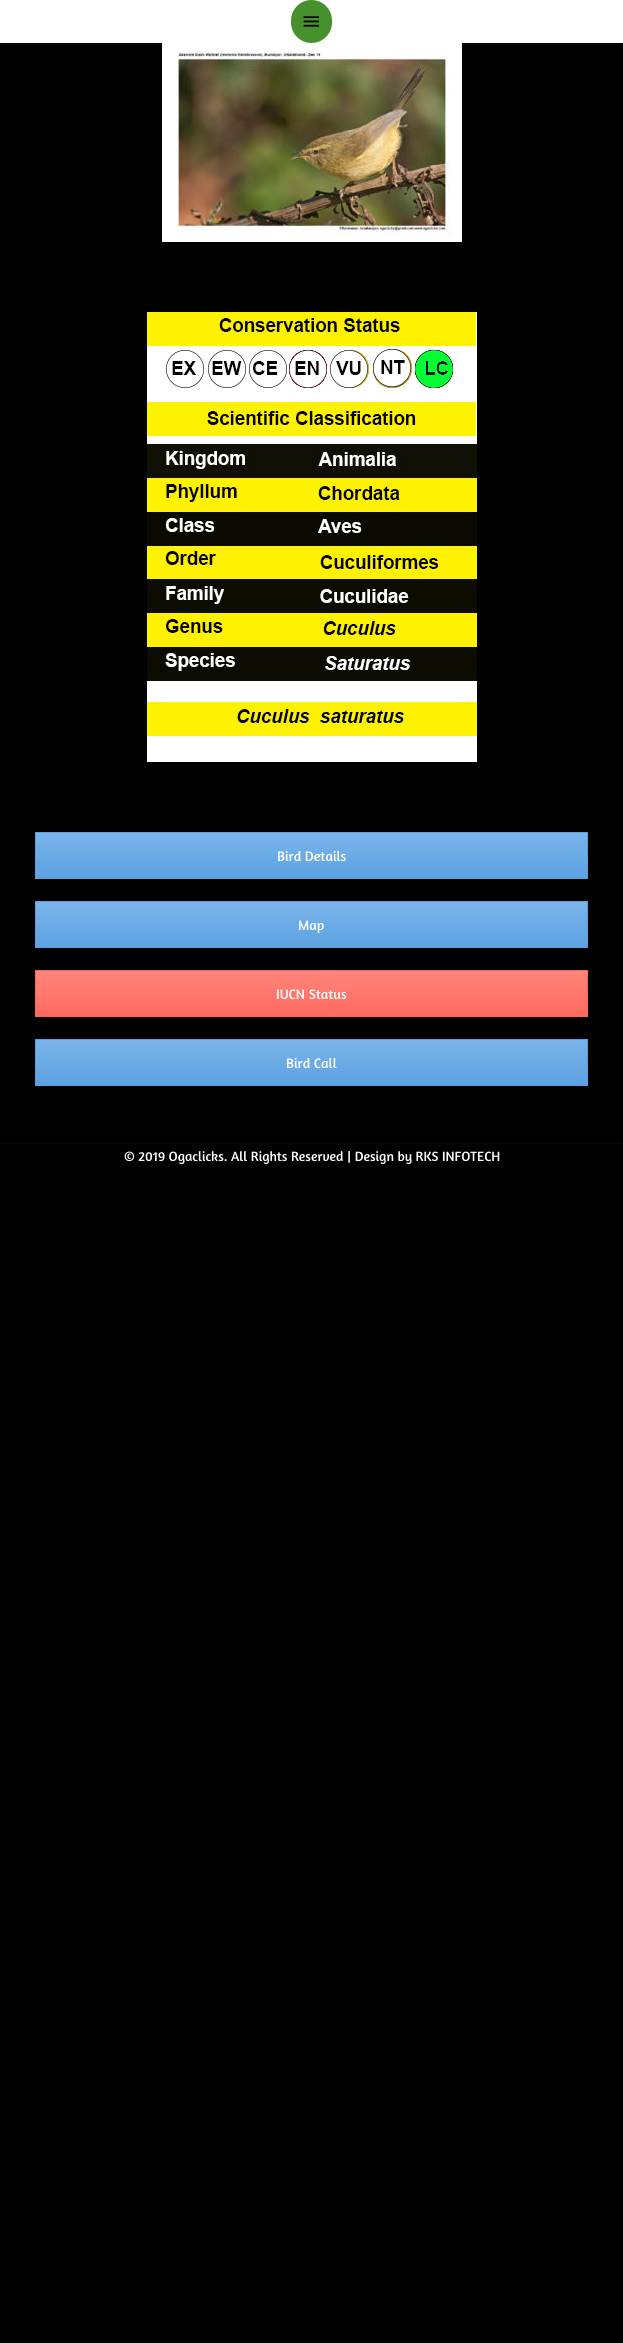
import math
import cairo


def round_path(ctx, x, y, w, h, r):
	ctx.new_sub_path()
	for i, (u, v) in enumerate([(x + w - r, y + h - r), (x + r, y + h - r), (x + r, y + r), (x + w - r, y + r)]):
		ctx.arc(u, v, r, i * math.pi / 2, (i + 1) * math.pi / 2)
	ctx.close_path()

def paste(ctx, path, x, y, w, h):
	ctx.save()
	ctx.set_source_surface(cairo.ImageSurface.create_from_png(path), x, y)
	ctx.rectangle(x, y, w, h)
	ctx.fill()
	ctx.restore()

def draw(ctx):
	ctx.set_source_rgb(0, 0, 0)
	ctx.paint()
	ctx.set_source_rgb(1, 1, 1)
	ctx.rectangle(0, 0, 623, 43)
	ctx.fill()
	ctx.set_source_rgb(0.275, 0.569, 0.176)
	round_path(ctx, 291, 0, 41, 43, 20.5)
	ctx.fill()
	paste(ctx, 'media/1.png', 303, 16, 16, 11)
	paste(ctx, 'media/2.png', 162, 43, 300, 199)
	paste(ctx, 'media/3.png', 147, 312, 330, 450)
	gradient = cairo.LinearGradient(312, 833, 312, 878)
	gradient.add_color_stop_rgba(0, 0.482, 0.706, 0.914, 1)
	gradient.add_color_stop_rgba(1, 0.361, 0.635, 0.89, 1)
	ctx.set_source(gradient)
	ctx.rectangle(36, 833, 551, 45)
	ctx.fill()
	ctx.rectangle(35.5, 832.5, 552, 46)
	ctx.set_source_rgb(0.353, 0.631, 0.89)
	ctx.set_line_width(1)
	ctx.stroke()
	ctx.select_font_face('Amaranth')
	ctx.set_font_size(14)
	ctx.set_source_rgb(1, 1, 1)
	ctx.move_to(277, 861)
	ctx.show_text('Bird Details')
	gradient = cairo.LinearGradient(312, 902, 312, 947)
	gradient.add_color_stop_rgba(0, 0.482, 0.706, 0.914, 1)
	gradient.add_color_stop_rgba(1, 0.361, 0.635, 0.89, 1)
	ctx.set_source(gradient)
	ctx.rectangle(36, 902, 551, 45)
	ctx.fill()
	ctx.rectangle(35.5, 901.5, 552, 46)
	ctx.set_source_rgb(0.353, 0.631, 0.89)
	ctx.stroke()
	ctx.set_source_rgb(1, 1, 1)
	ctx.move_to(298, 930)
	ctx.show_text('Map')
	gradient = cairo.LinearGradient(312, 971, 312, 1016)
	gradient.add_color_stop_rgba(0, 1, 0.522, 0.486, 1)
	gradient.add_color_stop_rgba(1, 1, 0.412, 0.365, 1)
	ctx.set_source(gradient)
	ctx.rectangle(36, 971, 551, 45)
	ctx.fill()
	ctx.rectangle(35.5, 970.5, 552, 46)
	ctx.set_source_rgb(1, 0.404, 0.357)
	ctx.stroke()
	ctx.set_source_rgb(1, 1, 1)
	ctx.move_to(276, 999)
	ctx.show_text('IUCN Status')
	gradient = cairo.LinearGradient(312, 1040, 312, 1085)
	gradient.add_color_stop_rgba(0, 0.482, 0.706, 0.914, 1)
	gradient.add_color_stop_rgba(1, 0.361, 0.635, 0.89, 1)
	ctx.set_source(gradient)
	ctx.rectangle(36, 1040, 551, 45)
	ctx.fill()
	ctx.rectangle(35.5, 1039.5, 552, 46)
	ctx.set_source_rgb(0.353, 0.631, 0.89)
	ctx.stroke()
	ctx.set_source_rgb(1, 1, 1)
	ctx.move_to(286, 1068)
	ctx.show_text('Bird Call')
	ctx.set_source_rgb(0.039, 0.039, 0.039)
	ctx.rectangle(0, 1143, 623, 1)
	ctx.fill()
	ctx.set_font_size(13.7)
	ctx.set_source_rgb(1, 1, 1)
	ctx.move_to(124, 1161)
	ctx.show_text('© 2019 Ogaclicks. All Rights Reserved | Design by RKS INFOTECH')


surface = cairo.ImageSurface(cairo.FORMAT_RGB24, 623, 2343)
ctx = cairo.Context(surface)
options = cairo.FontOptions()
options.set_hint_metrics(cairo.HINT_METRICS_OFF)
options.set_hint_style(cairo.HINT_STYLE_NONE)
ctx.set_font_options(options)
ctx.set_miter_limit(4)
draw(ctx)
surface.write_to_png('image.png')
